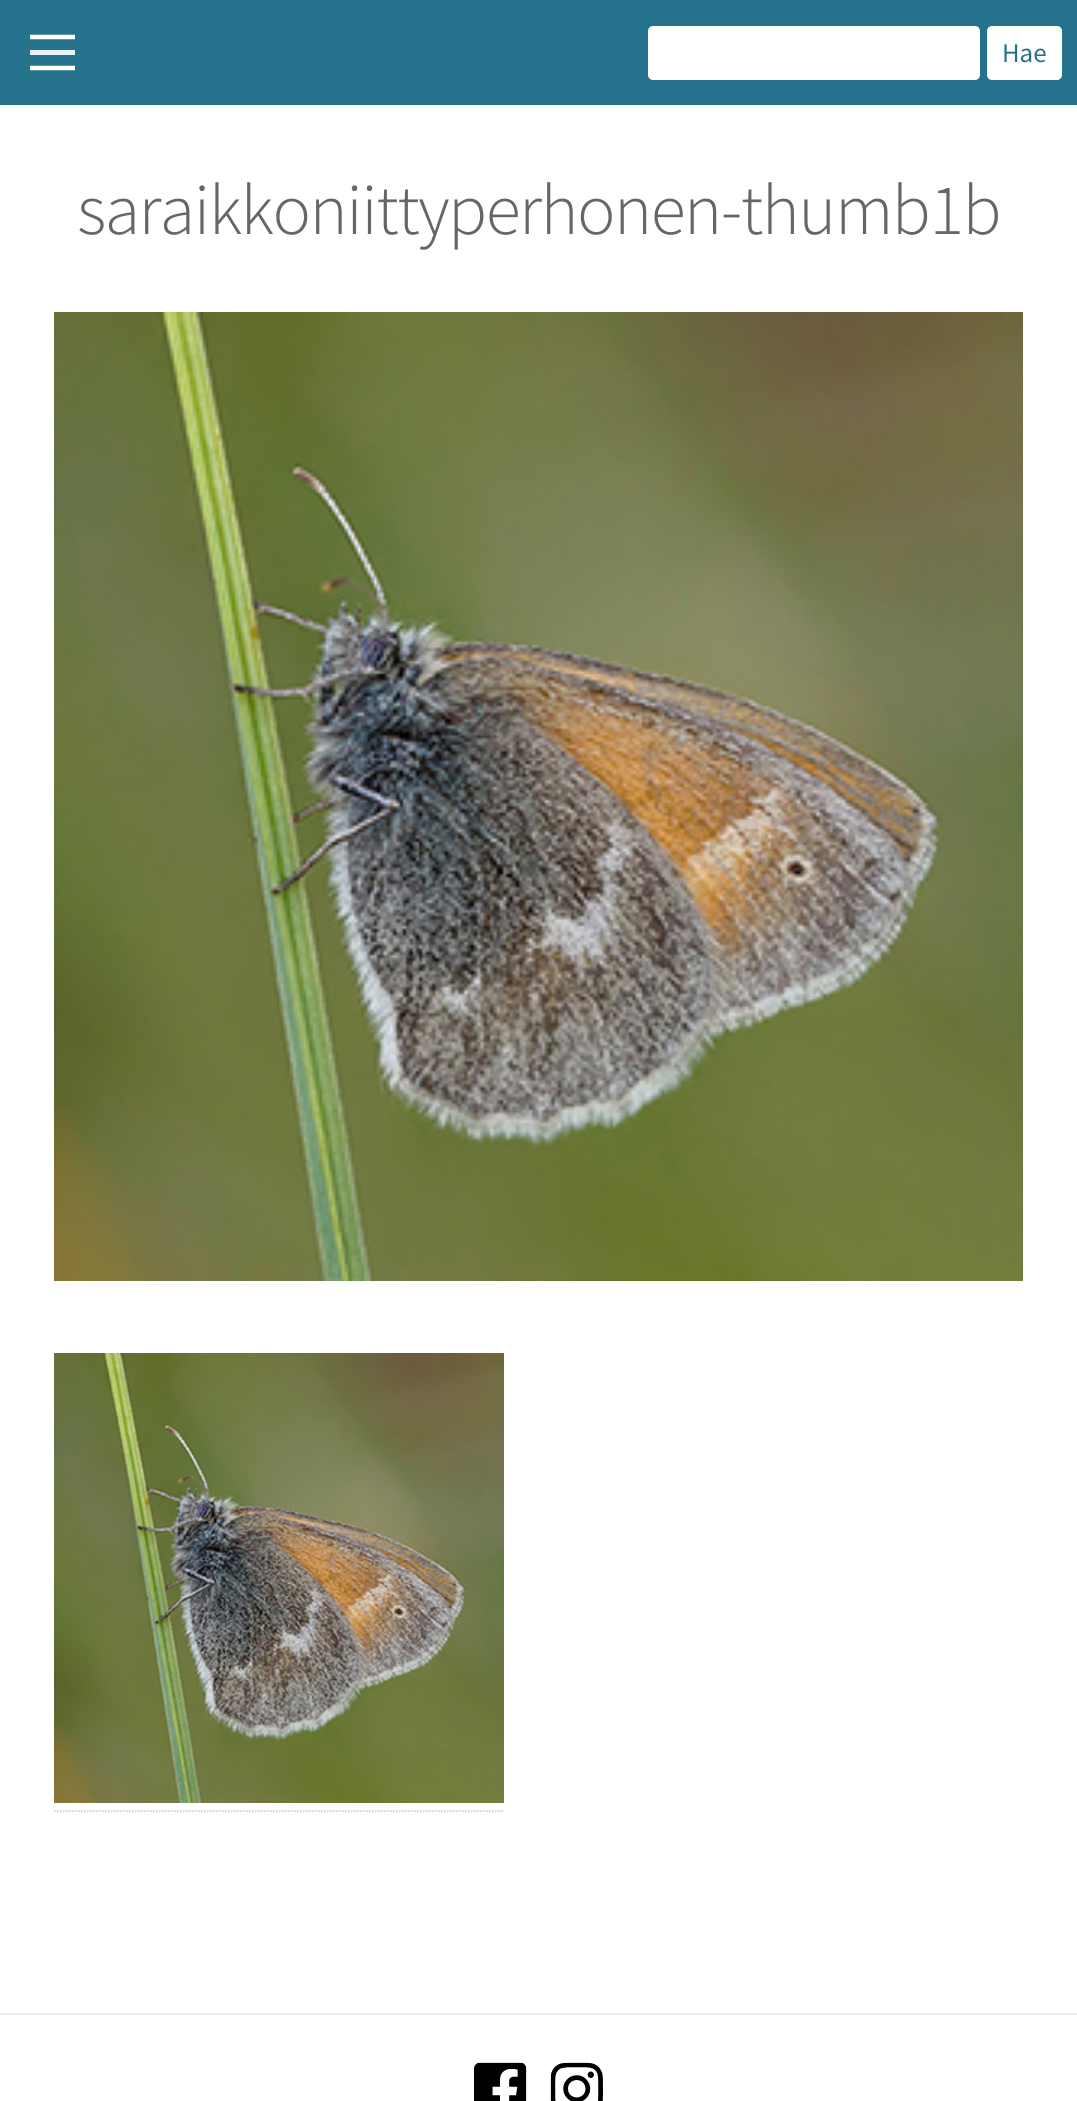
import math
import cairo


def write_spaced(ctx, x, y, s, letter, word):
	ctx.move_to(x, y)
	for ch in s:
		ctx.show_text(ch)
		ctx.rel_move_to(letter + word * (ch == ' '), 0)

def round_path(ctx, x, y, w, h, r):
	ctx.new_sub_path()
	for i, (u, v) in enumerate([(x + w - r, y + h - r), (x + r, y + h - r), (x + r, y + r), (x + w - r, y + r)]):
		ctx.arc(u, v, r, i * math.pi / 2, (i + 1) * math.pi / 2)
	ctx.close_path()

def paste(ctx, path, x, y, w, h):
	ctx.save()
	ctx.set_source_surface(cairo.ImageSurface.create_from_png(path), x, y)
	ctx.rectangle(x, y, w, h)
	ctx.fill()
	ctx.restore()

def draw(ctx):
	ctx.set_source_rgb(1, 1, 1)
	ctx.paint()
	ctx.set_source_rgb(0.145, 0.447, 0.549)
	ctx.rectangle(0, 0, 1077, 105)
	ctx.fill()
	ctx.new_path()
	ctx.move_to(30, 37)
	ctx.line_to(75, 37)
	ctx.set_source_rgb(1, 1, 1)
	ctx.set_line_width(4.5)
	ctx.stroke()
	ctx.set_source_rgb(0.914, 0.945, 0.957)
	ctx.rectangle(30, 50, 45, 5)
	ctx.fill()
	ctx.new_path()
	ctx.move_to(30, 68)
	ctx.line_to(75, 68)
	ctx.set_source_rgb(1, 1, 1)
	ctx.stroke()
	round_path(ctx, 648, 26, 332, 54, 5)
	ctx.fill()
	round_path(ctx, 987, 26, 75, 54, 5)
	ctx.fill()
	ctx.select_font_face('Source Sans Pro')
	ctx.set_font_size(27)
	ctx.set_source_rgb(0.145, 0.447, 0.549)
	ctx.move_to(1002, 62)
	ctx.show_text('Hae')
	ctx.select_font_face('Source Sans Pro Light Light')
	ctx.set_font_size(72)
	ctx.set_source_rgb(0.4, 0.4, 0.4)
	write_spaced(ctx, 77, 234, 'saraikkoniittyperhonen-thumb1b', -1.5, 0)
	paste(ctx, 'media/1.png', 54, 312, 969, 969)
	paste(ctx, 'media/2.png', 54, 1353, 450, 450)
	ctx.new_path()
	ctx.move_to(54, 1811)
	ctx.line_to(504, 1811)
	ctx.set_source_rgb(0.753, 0.753, 0.753)
	ctx.set_line_width(1.5)
	ctx.set_dash([1.5, 1.5])
	ctx.stroke()
	ctx.set_source_rgb(0.925, 0.925, 0.925)
	ctx.rectangle(0, 2013, 1077, 2)
	ctx.fill()
	paste(ctx, 'media/3.png', 474, 2062, 53, 39)
	paste(ctx, 'media/4.png', 550, 2062, 53, 39)


surface = cairo.ImageSurface(cairo.FORMAT_RGB24, 1077, 2101)
ctx = cairo.Context(surface)
options = cairo.FontOptions()
options.set_hint_metrics(cairo.HINT_METRICS_OFF)
options.set_hint_style(cairo.HINT_STYLE_NONE)
ctx.set_font_options(options)
ctx.set_miter_limit(4)
draw(ctx)
surface.write_to_png('image.png')
